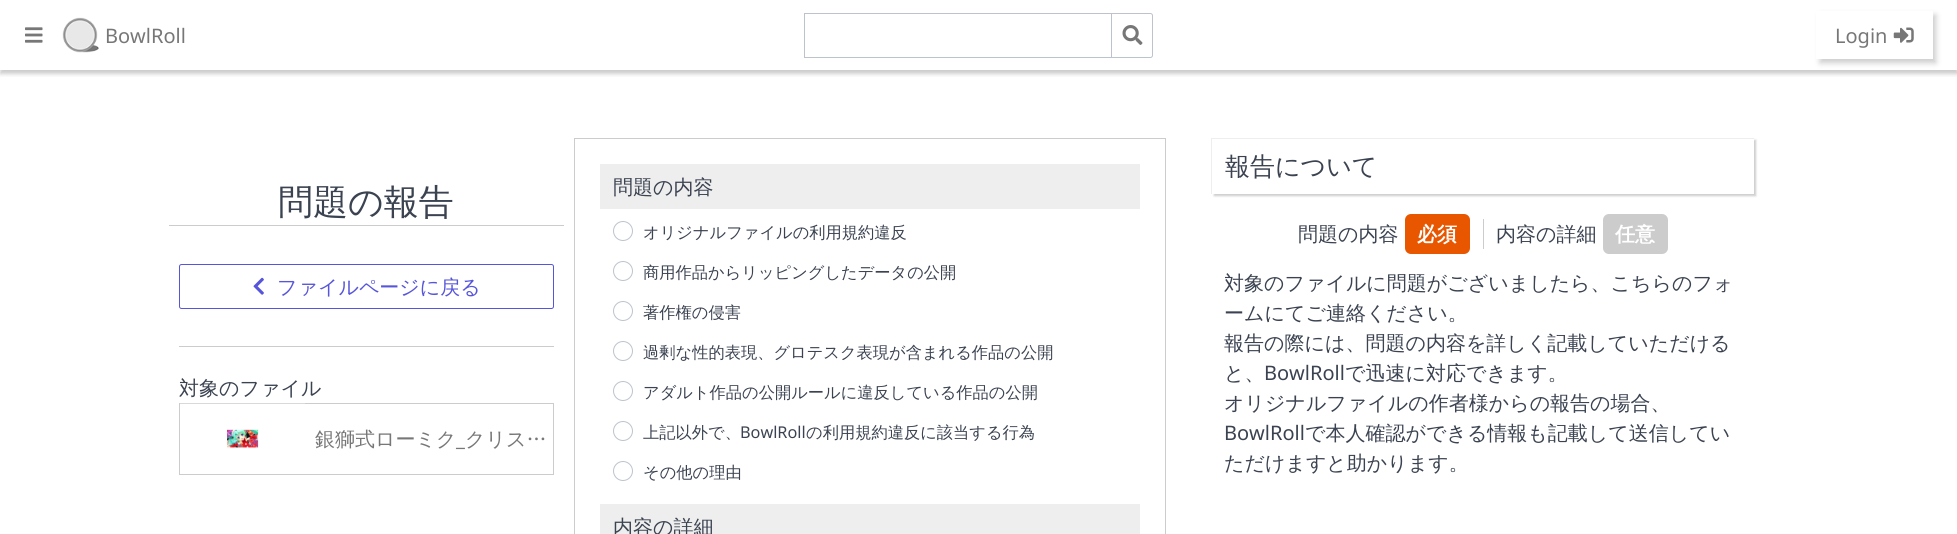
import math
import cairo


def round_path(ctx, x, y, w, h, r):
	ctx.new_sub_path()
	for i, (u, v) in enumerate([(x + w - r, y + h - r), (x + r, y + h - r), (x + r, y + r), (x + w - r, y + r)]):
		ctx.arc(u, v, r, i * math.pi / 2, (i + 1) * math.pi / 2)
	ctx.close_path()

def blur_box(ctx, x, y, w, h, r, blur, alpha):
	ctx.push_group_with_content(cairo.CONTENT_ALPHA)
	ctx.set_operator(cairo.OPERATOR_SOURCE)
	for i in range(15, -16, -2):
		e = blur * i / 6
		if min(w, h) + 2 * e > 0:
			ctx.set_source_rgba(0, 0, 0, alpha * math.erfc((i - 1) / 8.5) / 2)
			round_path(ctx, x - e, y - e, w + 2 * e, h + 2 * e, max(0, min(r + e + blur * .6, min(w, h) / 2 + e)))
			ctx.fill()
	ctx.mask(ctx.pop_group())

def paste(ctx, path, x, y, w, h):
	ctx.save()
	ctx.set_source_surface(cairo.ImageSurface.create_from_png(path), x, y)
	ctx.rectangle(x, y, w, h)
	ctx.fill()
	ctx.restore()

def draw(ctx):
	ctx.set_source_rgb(1, 1, 1)
	ctx.paint()
	ctx.save()
	ctx.rectangle(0, 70, 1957, 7)
	ctx.clip()
	ctx.set_source_rgb(0, 0, 0)
	blur_box(ctx, 0, 4, 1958, 70, 0, 2, 0.2)
	ctx.restore()
	paste(ctx, 'media/1.png', 25, 27, 18, 16)
	paste(ctx, 'media/2.png', 62, 17, 37, 36)
	ctx.select_font_face('Noto Sans')
	ctx.set_font_size(20)
	ctx.set_source_rgb(0.467, 0.467, 0.467)
	ctx.move_to(105, 43)
	ctx.show_text('BowlRoll')
	ctx.rectangle(804.5, 13.5, 308, 44)
	ctx.set_source_rgb(0.737, 0.765, 0.808)
	ctx.set_line_width(1)
	ctx.stroke()
	ctx.set_source_rgb(1, 1, 1)
	ctx.new_path()
	ctx.move_to(1111.5, 13.5)
	ctx.line_to(1150.5, 13.5)
	ctx.curve_to(1151.5, 13.5, 1152.5, 14.5, 1152.5, 15.5)
	ctx.line_to(1152.5, 55.5)
	ctx.curve_to(1152.5, 56.5, 1151.5, 57.5, 1150.5, 57.5)
	ctx.line_to(1111.5, 57.5)
	ctx.close_path()
	ctx.fill_preserve()
	ctx.set_source_rgb(0.737, 0.765, 0.808)
	ctx.stroke()
	paste(ctx, 'media/3.png', 1122, 25, 21, 20)
	ctx.save()
	ctx.set_fill_rule(cairo.FILL_RULE_EVEN_ODD)
	ctx.new_path()
	ctx.move_to(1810, 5)
	ctx.line_to(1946, 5)
	ctx.line_to(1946, 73)
	ctx.line_to(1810, 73)
	ctx.close_path()
	ctx.move_to(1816, 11)
	ctx.line_to(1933, 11)
	ctx.line_to(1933, 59)
	ctx.line_to(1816, 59)
	ctx.close_path()
	ctx.clip()
	ctx.set_source_rgb(0, 0, 0)
	blur_box(ctx, 1820, 15, 116, 48, 0, 3, 0.2)
	ctx.restore()
	ctx.set_source_rgb(0.467, 0.467, 0.467)
	ctx.move_to(1835, 43)
	ctx.show_text('Login')
	paste(ctx, 'media/4.png', 1893, 27, 21, 16)
	ctx.set_source_rgb(0.8, 0.8, 0.8)
	ctx.rectangle(169, 225, 395, 1)
	ctx.fill()
	ctx.select_font_face('WenQuanYi Zen Hei Medium')
	ctx.set_font_size(35)
	ctx.set_source_rgb(0.231, 0.263, 0.318)
	ctx.move_to(278, 214)
	ctx.show_text('問題の報告')
	round_path(ctx, 179.5, 264.5, 374, 44, 2)
	ctx.set_source_rgb(0.341, 0.333, 0.851)
	ctx.stroke()
	paste(ctx, 'media/5.png', 253, 277, 11, 18)
	ctx.set_font_size(20)
	ctx.move_to(277, 294)
	ctx.show_text('ファイルページに戻る')
	ctx.set_source_rgb(0.8, 0.8, 0.8)
	ctx.rectangle(179, 346, 375, 1)
	ctx.fill()
	ctx.set_source_rgb(0.231, 0.263, 0.318)
	ctx.move_to(179, 395)
	ctx.show_text('対象のファイル')
	ctx.rectangle(179.5, 403.5, 374, 71)
	ctx.set_source_rgb(0.8, 0.8, 0.8)
	ctx.stroke()
	paste(ctx, 'media/6.png', 180, 403, 125, 46)
	ctx.set_source_rgb(0.467, 0.467, 0.467)
	ctx.move_to(315, 446)
	ctx.show_text('銀獅式ローミク')
	ctx.select_font_face('Noto Sans')
	ctx.move_to(456, 446)
	ctx.show_text('_')
	ctx.select_font_face('WenQuanYi Zen Hei Medium')
	ctx.move_to(465, 446)
	ctx.show_text('クリス…')
	ctx.rectangle(574.5, 138.5, 591, 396)
	ctx.set_source_rgb(0.8, 0.8, 0.8)
	ctx.stroke()
	ctx.set_source_rgb(0.933, 0.933, 0.933)
	ctx.rectangle(600, 164, 540, 45)
	ctx.fill()
	ctx.set_source_rgb(0.231, 0.263, 0.318)
	ctx.move_to(613, 194)
	ctx.show_text('問題の内容')
	ctx.new_path()
	ctx.arc(623, 231, 9.5, 0, 2 * math.pi)
	ctx.set_source_rgb(0.737, 0.765, 0.808)
	ctx.stroke()
	ctx.set_font_size(16.25)
	ctx.set_source_rgb(0.231, 0.263, 0.318)
	ctx.move_to(643, 238)
	ctx.show_text('オリジナルファイルの利用規約違反')
	ctx.new_path()
	ctx.arc(623, 271, 9.5, 0, 2 * math.pi)
	ctx.set_source_rgb(0.737, 0.765, 0.808)
	ctx.stroke()
	ctx.set_source_rgb(0.231, 0.263, 0.318)
	ctx.move_to(643, 278)
	ctx.show_text('商用作品からリッピングしたデータの公開')
	ctx.new_path()
	ctx.arc(623, 311, 9.5, 0, 2 * math.pi)
	ctx.set_source_rgb(0.737, 0.765, 0.808)
	ctx.stroke()
	ctx.set_source_rgb(0.231, 0.263, 0.318)
	ctx.move_to(643, 318)
	ctx.show_text('著作権の侵害')
	ctx.new_path()
	ctx.arc(623, 351, 9.5, 0, 2 * math.pi)
	ctx.set_source_rgb(0.737, 0.765, 0.808)
	ctx.stroke()
	ctx.set_source_rgb(0.231, 0.263, 0.318)
	ctx.move_to(643, 358)
	ctx.show_text('過剰な性的表現、グロテスク表現が含まれる作品の公開')
	ctx.new_path()
	ctx.arc(623, 391, 9.5, 0, 2 * math.pi)
	ctx.set_source_rgb(0.737, 0.765, 0.808)
	ctx.stroke()
	ctx.set_source_rgb(0.231, 0.263, 0.318)
	ctx.move_to(643, 398)
	ctx.show_text('アダルト作品の公開ルールに違反している作品の公開')
	ctx.new_path()
	ctx.arc(623, 431, 9.5, 0, 2 * math.pi)
	ctx.set_source_rgb(0.737, 0.765, 0.808)
	ctx.stroke()
	ctx.set_source_rgb(0.231, 0.263, 0.318)
	ctx.move_to(643, 438)
	ctx.show_text('上記以外で、')
	ctx.select_font_face('Noto Sans')
	ctx.move_to(740, 438)
	ctx.show_text('BowlRoll')
	ctx.select_font_face('WenQuanYi Zen Hei Medium')
	ctx.move_to(806, 438)
	ctx.show_text('の利用規約違反に該当する行為')
	ctx.new_path()
	ctx.arc(623, 471, 9.5, 0, 2 * math.pi)
	ctx.set_source_rgb(0.737, 0.765, 0.808)
	ctx.stroke()
	ctx.set_source_rgb(0.231, 0.263, 0.318)
	ctx.move_to(643, 478)
	ctx.show_text('その他の理由')
	ctx.set_source_rgb(0.933, 0.933, 0.933)
	ctx.rectangle(600, 504, 540, 30)
	ctx.fill()
	ctx.set_font_size(20)
	ctx.set_source_rgb(0.231, 0.263, 0.318)
	ctx.move_to(613, 534)
	ctx.show_text('内容の詳細')
	ctx.set_source_rgb(0, 0, 0)
	blur_box(ctx, 1214, 140, 542, 56, 0, 1, 0.2)
	ctx.set_source_rgb(1, 1, 1)
	ctx.rectangle(1212, 139, 542, 55)
	ctx.fill()
	ctx.set_source_rgb(0.933, 0.933, 0.933)
	ctx.rectangle(1211, 138, 543, 1)
	ctx.rectangle(1211, 138, 1, 56)
	ctx.fill()
	ctx.set_font_size(25)
	ctx.set_source_rgb(0.231, 0.263, 0.318)
	ctx.move_to(1225, 175)
	ctx.show_text('報告について')
	ctx.set_font_size(20)
	ctx.move_to(1298, 241)
	ctx.show_text('問題の内容')
	ctx.set_source_rgb(0.91, 0.337, 0)
	round_path(ctx, 1405, 214, 65, 40, 6)
	ctx.fill()
	ctx.select_font_face('WenQuanYi Zen Hei', cairo.FONT_SLANT_NORMAL, cairo.FONT_WEIGHT_BOLD)
	ctx.set_source_rgb(1, 1, 1)
	ctx.move_to(1417, 241)
	ctx.show_text('必須')
	ctx.set_source_rgb(0.8, 0.8, 0.8)
	ctx.rectangle(1483, 219, 1, 30)
	ctx.fill()
	ctx.select_font_face('WenQuanYi Zen Hei Medium')
	ctx.set_source_rgb(0.231, 0.263, 0.318)
	ctx.move_to(1496, 241)
	ctx.show_text('内容の詳細')
	ctx.set_source_rgb(0.8, 0.8, 0.8)
	round_path(ctx, 1603, 214, 65, 40, 6)
	ctx.fill()
	ctx.select_font_face('WenQuanYi Zen Hei', cairo.FONT_SLANT_NORMAL, cairo.FONT_WEIGHT_BOLD)
	ctx.set_source_rgb(1, 1, 1)
	ctx.move_to(1615, 241)
	ctx.show_text('任意')
	ctx.select_font_face('WenQuanYi Zen Hei Medium')
	ctx.set_source_rgb(0.231, 0.263, 0.318)
	for x, y, s in [
		(1224, 290, '対象のファイルに問題がございましたら、こちらのフォ'),
		(1224, 320, 'ームにてご連絡ください。'),
		(1224, 350, '報告の際には、問題の内容を詳しく記載していただける'),
		(1224, 380, 'と、'),
	]:
		ctx.move_to(x, y)
		ctx.show_text(s)
	ctx.select_font_face('Noto Sans')
	ctx.move_to(1264, 380)
	ctx.show_text('BowlRoll')
	ctx.select_font_face('WenQuanYi Zen Hei Medium')
	ctx.move_to(1345, 380)
	ctx.show_text('で迅速に対応できます。')
	ctx.move_to(1224, 410)
	ctx.show_text('オリジナルファイルの作者様からの報告の場合、')
	ctx.select_font_face('Noto Sans')
	ctx.move_to(1224, 440)
	ctx.show_text('BowlRoll')
	ctx.select_font_face('WenQuanYi Zen Hei Medium')
	ctx.move_to(1305, 440)
	ctx.show_text('で本人確認ができる情報も記載して送信してい')
	ctx.move_to(1224, 470)
	ctx.show_text('ただけますと助かります。')


surface = cairo.ImageSurface(cairo.FORMAT_RGB24, 1957, 534)
ctx = cairo.Context(surface)
options = cairo.FontOptions()
options.set_hint_metrics(cairo.HINT_METRICS_OFF)
options.set_hint_style(cairo.HINT_STYLE_NONE)
ctx.set_font_options(options)
ctx.set_miter_limit(4)
draw(ctx)
surface.write_to_png('image.png')
